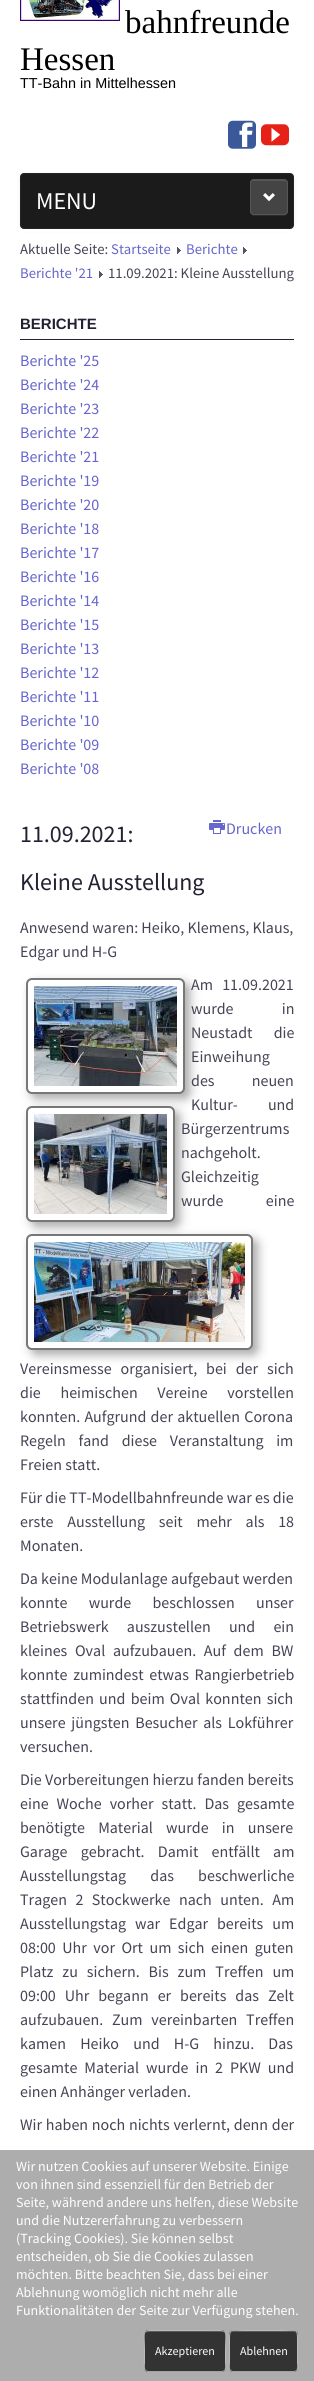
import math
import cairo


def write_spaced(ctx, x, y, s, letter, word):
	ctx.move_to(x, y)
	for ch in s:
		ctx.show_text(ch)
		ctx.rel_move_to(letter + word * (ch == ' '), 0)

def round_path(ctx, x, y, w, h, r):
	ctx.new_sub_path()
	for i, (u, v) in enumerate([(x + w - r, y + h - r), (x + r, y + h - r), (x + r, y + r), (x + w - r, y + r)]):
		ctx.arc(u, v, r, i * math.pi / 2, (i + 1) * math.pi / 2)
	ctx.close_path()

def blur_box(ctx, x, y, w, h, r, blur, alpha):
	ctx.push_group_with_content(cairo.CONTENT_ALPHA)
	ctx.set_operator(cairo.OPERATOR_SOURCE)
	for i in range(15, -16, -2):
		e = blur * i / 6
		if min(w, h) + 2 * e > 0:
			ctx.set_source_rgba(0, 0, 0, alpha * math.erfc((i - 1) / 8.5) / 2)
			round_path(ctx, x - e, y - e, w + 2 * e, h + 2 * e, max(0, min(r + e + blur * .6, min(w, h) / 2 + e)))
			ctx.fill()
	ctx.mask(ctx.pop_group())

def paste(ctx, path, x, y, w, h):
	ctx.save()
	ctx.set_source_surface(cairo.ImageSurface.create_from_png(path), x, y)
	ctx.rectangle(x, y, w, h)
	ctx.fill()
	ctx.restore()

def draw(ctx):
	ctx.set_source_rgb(1, 1, 1)
	ctx.paint()
	paste(ctx, 'media/1.png', 20, 0, 100, 21)
	ctx.select_font_face('Liberation Serif')
	ctx.set_font_size(33)
	ctx.set_source_rgb(0, 0, 0)
	ctx.move_to(125, 33)
	ctx.show_text('bahnfreunde')
	ctx.move_to(20, 70)
	ctx.show_text('Hessen')
	ctx.select_font_face('Liberation Sans')
	ctx.set_font_size(14.4)
	ctx.move_to(20, 88)
	ctx.show_text('TT-Bahn in Mittelhessen')
	paste(ctx, 'media/2.png', 228, 120, 28, 29)
	paste(ctx, 'media/3.png', 261, 124, 28, 22)
	ctx.set_source_rgb(0, 0, 0)
	blur_box(ctx, 20, 174, 274, 56, 4, 2, 0.07)
	ctx.set_source_rgb(0.106, 0.106, 0.106)
	round_path(ctx, 20.5, 173.5, 273, 55, 3.5)
	ctx.fill_preserve()
	ctx.set_source_rgb(0.145, 0.145, 0.145)
	ctx.set_line_width(1)
	ctx.stroke()
	ctx.select_font_face('Source Sans Pro')
	ctx.set_font_size(24)
	ctx.set_source_rgb(1, 1, 1)
	ctx.move_to(36, 209)
	ctx.show_text('MENU')
	ctx.set_source_rgb(0.173, 0.173, 0.173)
	ctx.new_path()
	ctx.move_to(250, 211)
	ctx.curve_to(250, 217, 254.5, 216, 259, 216)
	ctx.line_to(279, 216)
	ctx.curve_to(283.5, 216, 288, 217, 288, 211)
	ctx.curve_to(288, 213, 286, 215, 284, 215)
	ctx.line_to(254, 215)
	ctx.curve_to(252, 215, 250, 213, 250, 211)
	ctx.close_path()
	ctx.fill()
	ctx.set_source_rgb(0.267, 0.267, 0.267)
	round_path(ctx, 250, 179, 38, 36, 4)
	ctx.fill()
	ctx.set_source_rgb(0.341, 0.341, 0.341)
	ctx.new_path()
	ctx.move_to(254, 181)
	ctx.line_to(284, 181)
	ctx.curve_to(286, 181, 287, 182, 287, 184)
	ctx.curve_to(287, 179, 283, 180, 279, 180)
	ctx.line_to(259, 180)
	ctx.curve_to(255, 180, 251, 179, 251, 184)
	ctx.curve_to(251, 182, 252, 181, 254, 181)
	ctx.close_path()
	ctx.fill()
	round_path(ctx, 250.5, 179.5, 37, 35, 3.5)
	ctx.set_source_rgb(0.333, 0.333, 0.333)
	ctx.stroke()
	paste(ctx, 'media/4.png', 263, 193, 12, 9)
	ctx.set_source_rgb(1, 1, 1)
	ctx.rectangle(19, 229, 275, 3)
	ctx.fill()
	ctx.set_font_size(14.75)
	ctx.set_source_rgb(0.267, 0.267, 0.333)
	ctx.move_to(20, 254)
	ctx.show_text('Aktuelle Seite:')
	ctx.set_source_rgb(0.4, 0.4, 0.8)
	ctx.move_to(111, 254)
	ctx.show_text('Startseite')
	paste(ctx, 'media/5.png', 177, 247, 4, 7)
	ctx.move_to(186, 254)
	ctx.show_text('Berichte')
	paste(ctx, 'media/5.png', 243, 247, 4, 7)
	ctx.move_to(20, 278)
	ctx.show_text('Berichte \'21')
	paste(ctx, 'media/5.png', 99, 271, 4, 7)
	ctx.set_source_rgb(0.267, 0.267, 0.333)
	ctx.move_to(108, 278)
	ctx.show_text('11.09.2021: Kleine Ausstellung')
	ctx.set_source_rgb(0.133, 0.133, 0.2)
	ctx.rectangle(20, 339, 274, 1)
	ctx.fill()
	ctx.select_font_face('Liberation Sans', cairo.FONT_SLANT_NORMAL, cairo.FONT_WEIGHT_BOLD)
	ctx.set_font_size(15)
	ctx.move_to(20, 329)
	ctx.show_text('BERICHTE')
	ctx.select_font_face('Source Sans Pro')
	ctx.set_font_size(16)
	ctx.set_source_rgb(0.4, 0.4, 0.8)
	for x, y, s in [
		(20, 366, 'Berichte \'25'),
		(20, 390, 'Berichte \'24'),
		(20, 414, 'Berichte \'23'),
		(20, 438, 'Berichte \'22'),
		(20, 462, 'Berichte \'21'),
		(20, 486, 'Berichte \'19'),
		(20, 510, 'Berichte \'20'),
		(20, 534, 'Berichte \'18'),
		(20, 558, 'Berichte \'17'),
		(20, 582, 'Berichte \'16'),
		(20, 606, 'Berichte \'14'),
		(20, 630, 'Berichte \'15'),
		(20, 654, 'Berichte \'13'),
		(20, 678, 'Berichte \'12'),
		(20, 702, 'Berichte \'11'),
		(20, 726, 'Berichte \'10'),
		(20, 750, 'Berichte \'09'),
		(20, 774, 'Berichte \'08'),
	]:
		ctx.move_to(x, y)
		ctx.show_text(s)
	ctx.set_font_size(24)
	ctx.set_source_rgb(0.133, 0.133, 0.2)
	ctx.move_to(20, 842)
	ctx.show_text('11.09.2021:')
	ctx.move_to(20, 890)
	ctx.show_text('Kleine Ausstellung')
	paste(ctx, 'media/6.png', 209, 820, 16, 14)
	ctx.set_font_size(16)
	ctx.set_source_rgb(0.4, 0.4, 0.8)
	ctx.move_to(226, 834)
	ctx.show_text('Drucken')
	ctx.set_source_rgb(0.267, 0.267, 0.333)
	ctx.move_to(20, 933)
	ctx.show_text('Anwesend waren: Heiko, Klemens, Klaus,')
	ctx.move_to(20, 957)
	ctx.show_text('Edgar und H-G')
	ctx.set_source_rgb(0.667, 0.667, 0.667)
	blur_box(ctx, 31, 983, 159, 116, 6, 5, 1)
	ctx.set_source_rgb(1, 1, 1)
	round_path(ctx, 27, 979, 157, 114, 5)
	ctx.fill_preserve()
	ctx.set_source_rgb(0.467, 0.467, 0.467)
	ctx.set_line_width(2)
	ctx.stroke()
	paste(ctx, 'media/7.png', 34, 986, 143, 100)
	ctx.set_source_rgb(0.267, 0.267, 0.333)
	write_spaced(ctx, 191, 990, 'Am 11.09.2021', 0, 6)
	write_spaced(ctx, 191, 1014, 'wurde in', 0, 45)
	write_spaced(ctx, 191, 1038, 'Neustadt die', 0, 18)
	ctx.move_to(191, 1062)
	ctx.show_text('Einweihung')
	write_spaced(ctx, 191, 1086, 'des neuen', 0, 34)
	ctx.set_source_rgb(0.667, 0.667, 0.667)
	blur_box(ctx, 31, 1111, 149, 116, 6, 5, 1)
	ctx.set_source_rgb(1, 1, 1)
	round_path(ctx, 27, 1107, 147, 114, 5)
	ctx.fill_preserve()
	ctx.set_source_rgb(0.467, 0.467, 0.467)
	ctx.stroke()
	paste(ctx, 'media/8.png', 34, 1114, 133, 100)
	ctx.set_source_rgb(0.267, 0.267, 0.333)
	write_spaced(ctx, 191, 1110, 'Kultur- und', 0, 27)
	for x, y, s in [
		(181, 1134, 'Bürgerzentrums'),
		(181, 1158, 'nachgeholt.'),
		(181, 1182, 'Gleichzeitig'),
	]:
		ctx.move_to(x, y)
		ctx.show_text(s)
	write_spaced(ctx, 181, 1206, 'wurde eine', 0, 39)
	ctx.set_source_rgb(0.667, 0.667, 0.667)
	blur_box(ctx, 31, 1239, 227, 116, 6, 5, 1)
	ctx.set_source_rgb(1, 1, 1)
	round_path(ctx, 27, 1235, 225, 114, 5)
	ctx.fill_preserve()
	ctx.set_source_rgb(0.467, 0.467, 0.467)
	ctx.stroke()
	paste(ctx, 'media/9.png', 34, 1242, 211, 100)
	ctx.set_source_rgb(0.267, 0.267, 0.333)
	write_spaced(ctx, 20, 1374, 'Vereinsmesse organisiert, bei der sich', 0, 5.75)
	write_spaced(ctx, 20, 1398, 'die heimischen Vereine vorstellen', 0, 16.5)
	write_spaced(ctx, 20, 1422, 'konnten. Aufgrund der aktuellen Corona', 0, 1)
	write_spaced(ctx, 20, 1446, 'Regeln fand diese Veranstaltung im', 0, 9.5)
	ctx.move_to(20, 1470)
	ctx.show_text('Freien statt.')
	ctx.move_to(20, 1503)
	ctx.show_text('Für die TT-Modellbahnfreunde war es die')
	write_spaced(ctx, 20, 1527, 'erste Ausstellung seit mehr als 18', 0, 10.5)
	ctx.move_to(20, 1551)
	ctx.show_text('Monaten.')
	ctx.move_to(20, 1584)
	ctx.show_text('Da keine Modulanlage aufgebaut werden')
	write_spaced(ctx, 20, 1608, 'konnte wurde beschlossen unser', 0, 18)
	write_spaced(ctx, 20, 1632, 'Betriebswerk auszustellen und ein', 0, 15)
	write_spaced(ctx, 20, 1656, 'kleines Oval aufzubauen. Auf dem BW', 0, 4.5)
	write_spaced(ctx, 20, 1680, 'konnte zumindest etwas Rangierbetrieb', 0, 2.5)
	write_spaced(ctx, 20, 1704, 'stattfinden und beim Oval konnten sich', 0, 2)
	write_spaced(ctx, 20, 1728, 'unsere jüngsten Besucher als Lokführer', 0, 2.5)
	ctx.move_to(20, 1752)
	ctx.show_text('versuchen.')
	ctx.move_to(20, 1785)
	ctx.show_text('Die Vorbereitungen hierzu fanden bereits')
	write_spaced(ctx, 20, 1809, 'eine Woche vorher statt. Das gesamte', 0, 4.75)
	write_spaced(ctx, 20, 1833, 'benötigte Material wurde in unsere', 0, 10)
	write_spaced(ctx, 20, 1857, 'Garage gebracht. Damit entfällt am', 0, 10)
	write_spaced(ctx, 20, 1881, 'Ausstellungstag das beschwerliche', 0, 21)
	write_spaced(ctx, 20, 1905, 'Tragen 2 Stockwerke nach unten. Am', 0, 5.25)
	write_spaced(ctx, 20, 1929, 'Ausstellungstag war Edgar bereits um', 0, 5.75)
	write_spaced(ctx, 20, 1953, '08:00 Uhr vor Ort um sich einen guten', 0, 3.25)
	write_spaced(ctx, 20, 1977, 'Platz zu sichern. Bis zum Treffen um', 0, 5.75)
	write_spaced(ctx, 20, 2001, '09:00 Uhr begann er bereits das Zelt', 0, 5.75)
	write_spaced(ctx, 20, 2025, 'aufzubauen. Zum vereinbarten Treffen', 0, 5.5)
	write_spaced(ctx, 20, 2049, 'kamen Heiko und H-G hinzu. Das', 0, 11)
	write_spaced(ctx, 20, 2073, 'gesamte Material wurde in 2 PKW und', 0, 3.75)
	ctx.move_to(20, 2097)
	ctx.show_text('einen Anhänger verladen.')
	write_spaced(ctx, 20, 2130, 'Wir haben noch nichts verlernt, denn der', 0, 0.5)
	ctx.set_source_rgb(0.678, 0.678, 0.678)
	ctx.rectangle(0, 2150, 314, 231)
	ctx.fill()
	ctx.set_font_size(14)
	ctx.set_source_rgb(1, 1, 1)
	for x, y, s in [
		(16, 2171, 'Wir nutzen Cookies auf unserer Website. Einige'),
		(16, 2189, 'von ihnen sind essenziell für den Betrieb der'),
		(16, 2207, 'Seite, während andere uns helfen, diese Website'),
		(16, 2225, 'und die Nutzererfahrung zu verbessern'),
		(16, 2243, '(Tracking Cookies). Sie können selbst'),
		(16, 2261, 'entscheiden, ob Sie die Cookies zulassen'),
		(16, 2279, 'möchten. Bitte beachten Sie, dass bei einer'),
		(16, 2297, 'Ablehnung womöglich nicht mehr alle'),
		(16, 2315, 'Funktionalitäten der Seite zur Verfügung stehen.'),
	]:
		ctx.move_to(x, y)
		ctx.show_text(s)
	ctx.set_source_rgb(0.2, 0.2, 0.2)
	round_path(ctx, 144, 2330, 82, 42, 4)
	ctx.fill()
	ctx.set_source_rgb(0.361, 0.361, 0.361)
	ctx.new_path()
	ctx.move_to(148, 2332)
	ctx.line_to(222, 2332)
	ctx.curve_to(224, 2332, 225, 2333, 225, 2335)
	ctx.curve_to(225, 2328, 214, 2331, 210, 2331)
	ctx.line_to(160, 2331)
	ctx.curve_to(156, 2331, 145, 2328, 145, 2335)
	ctx.curve_to(145, 2333, 146, 2332, 148, 2332)
	ctx.close_path()
	ctx.fill()
	ctx.new_path()
	ctx.move_to(224.5, 2370.5)
	ctx.line_to(222.5, 2371.5)
	ctx.line_to(147.5, 2371.5)
	ctx.line_to(145.5, 2370.5)
	ctx.set_source_rgb(0.635, 0.635, 0.635)
	ctx.set_line_width(1)
	ctx.stroke()
	ctx.new_path()
	ctx.move_to(145.5, 2370.5)
	ctx.curve_to(143.5, 2368.5, 144.5, 2364, 144.5, 2362.5)
	ctx.line_to(144.5, 2351)
	ctx.curve_to(144.5, 2328.5, 140, 2330.5, 160.5, 2330.5)
	ctx.line_to(209.5, 2330.5)
	ctx.curve_to(230, 2330.5, 225.5, 2328.5, 225.5, 2351)
	ctx.line_to(225.5, 2362.5)
	ctx.curve_to(225.5, 2364, 226.5, 2368.5, 224.5, 2370.5)
	ctx.set_source_rgb(0.733, 0.733, 0.733)
	ctx.stroke()
	ctx.set_font_size(12)
	ctx.set_source_rgb(1, 1, 1)
	ctx.move_to(155, 2355)
	ctx.show_text('Akzeptieren')
	ctx.set_source_rgb(0.2, 0.2, 0.2)
	round_path(ctx, 229, 2330, 69, 42, 4)
	ctx.fill()
	ctx.set_source_rgb(0.361, 0.361, 0.361)
	ctx.new_path()
	ctx.move_to(233, 2332)
	ctx.line_to(294, 2332)
	ctx.curve_to(296, 2332, 297, 2333, 297, 2335)
	ctx.curve_to(297, 2328, 288, 2331, 284, 2331)
	ctx.line_to(243, 2331)
	ctx.curve_to(239, 2331, 230, 2328, 230, 2335)
	ctx.curve_to(230, 2333, 231, 2332, 233, 2332)
	ctx.close_path()
	ctx.fill()
	ctx.new_path()
	ctx.move_to(296.5, 2370.5)
	ctx.line_to(294.5, 2371.5)
	ctx.line_to(232.5, 2371.5)
	ctx.line_to(230.5, 2370.5)
	ctx.set_source_rgb(0.635, 0.635, 0.635)
	ctx.stroke()
	ctx.new_path()
	ctx.move_to(230.5, 2370.5)
	ctx.curve_to(228.5, 2368.5, 229.5, 2364, 229.5, 2362.5)
	ctx.line_to(229.5, 2339.5)
	ctx.curve_to(229.5, 2328, 230.5, 2330.5, 243, 2330.5)
	ctx.line_to(284, 2330.5)
	ctx.curve_to(296.5, 2330.5, 297.5, 2328, 297.5, 2339.5)
	ctx.line_to(297.5, 2362.5)
	ctx.curve_to(297.5, 2364, 298.5, 2368.5, 296.5, 2370.5)
	ctx.set_source_rgb(0.733, 0.733, 0.733)
	ctx.stroke()
	ctx.set_source_rgb(1, 1, 1)
	ctx.move_to(240, 2355)
	ctx.show_text('Ablehnen')


surface = cairo.ImageSurface(cairo.FORMAT_RGB24, 314, 2381)
ctx = cairo.Context(surface)
options = cairo.FontOptions()
options.set_hint_metrics(cairo.HINT_METRICS_OFF)
options.set_hint_style(cairo.HINT_STYLE_NONE)
ctx.set_font_options(options)
ctx.set_miter_limit(4)
draw(ctx)
surface.write_to_png('image.png')
